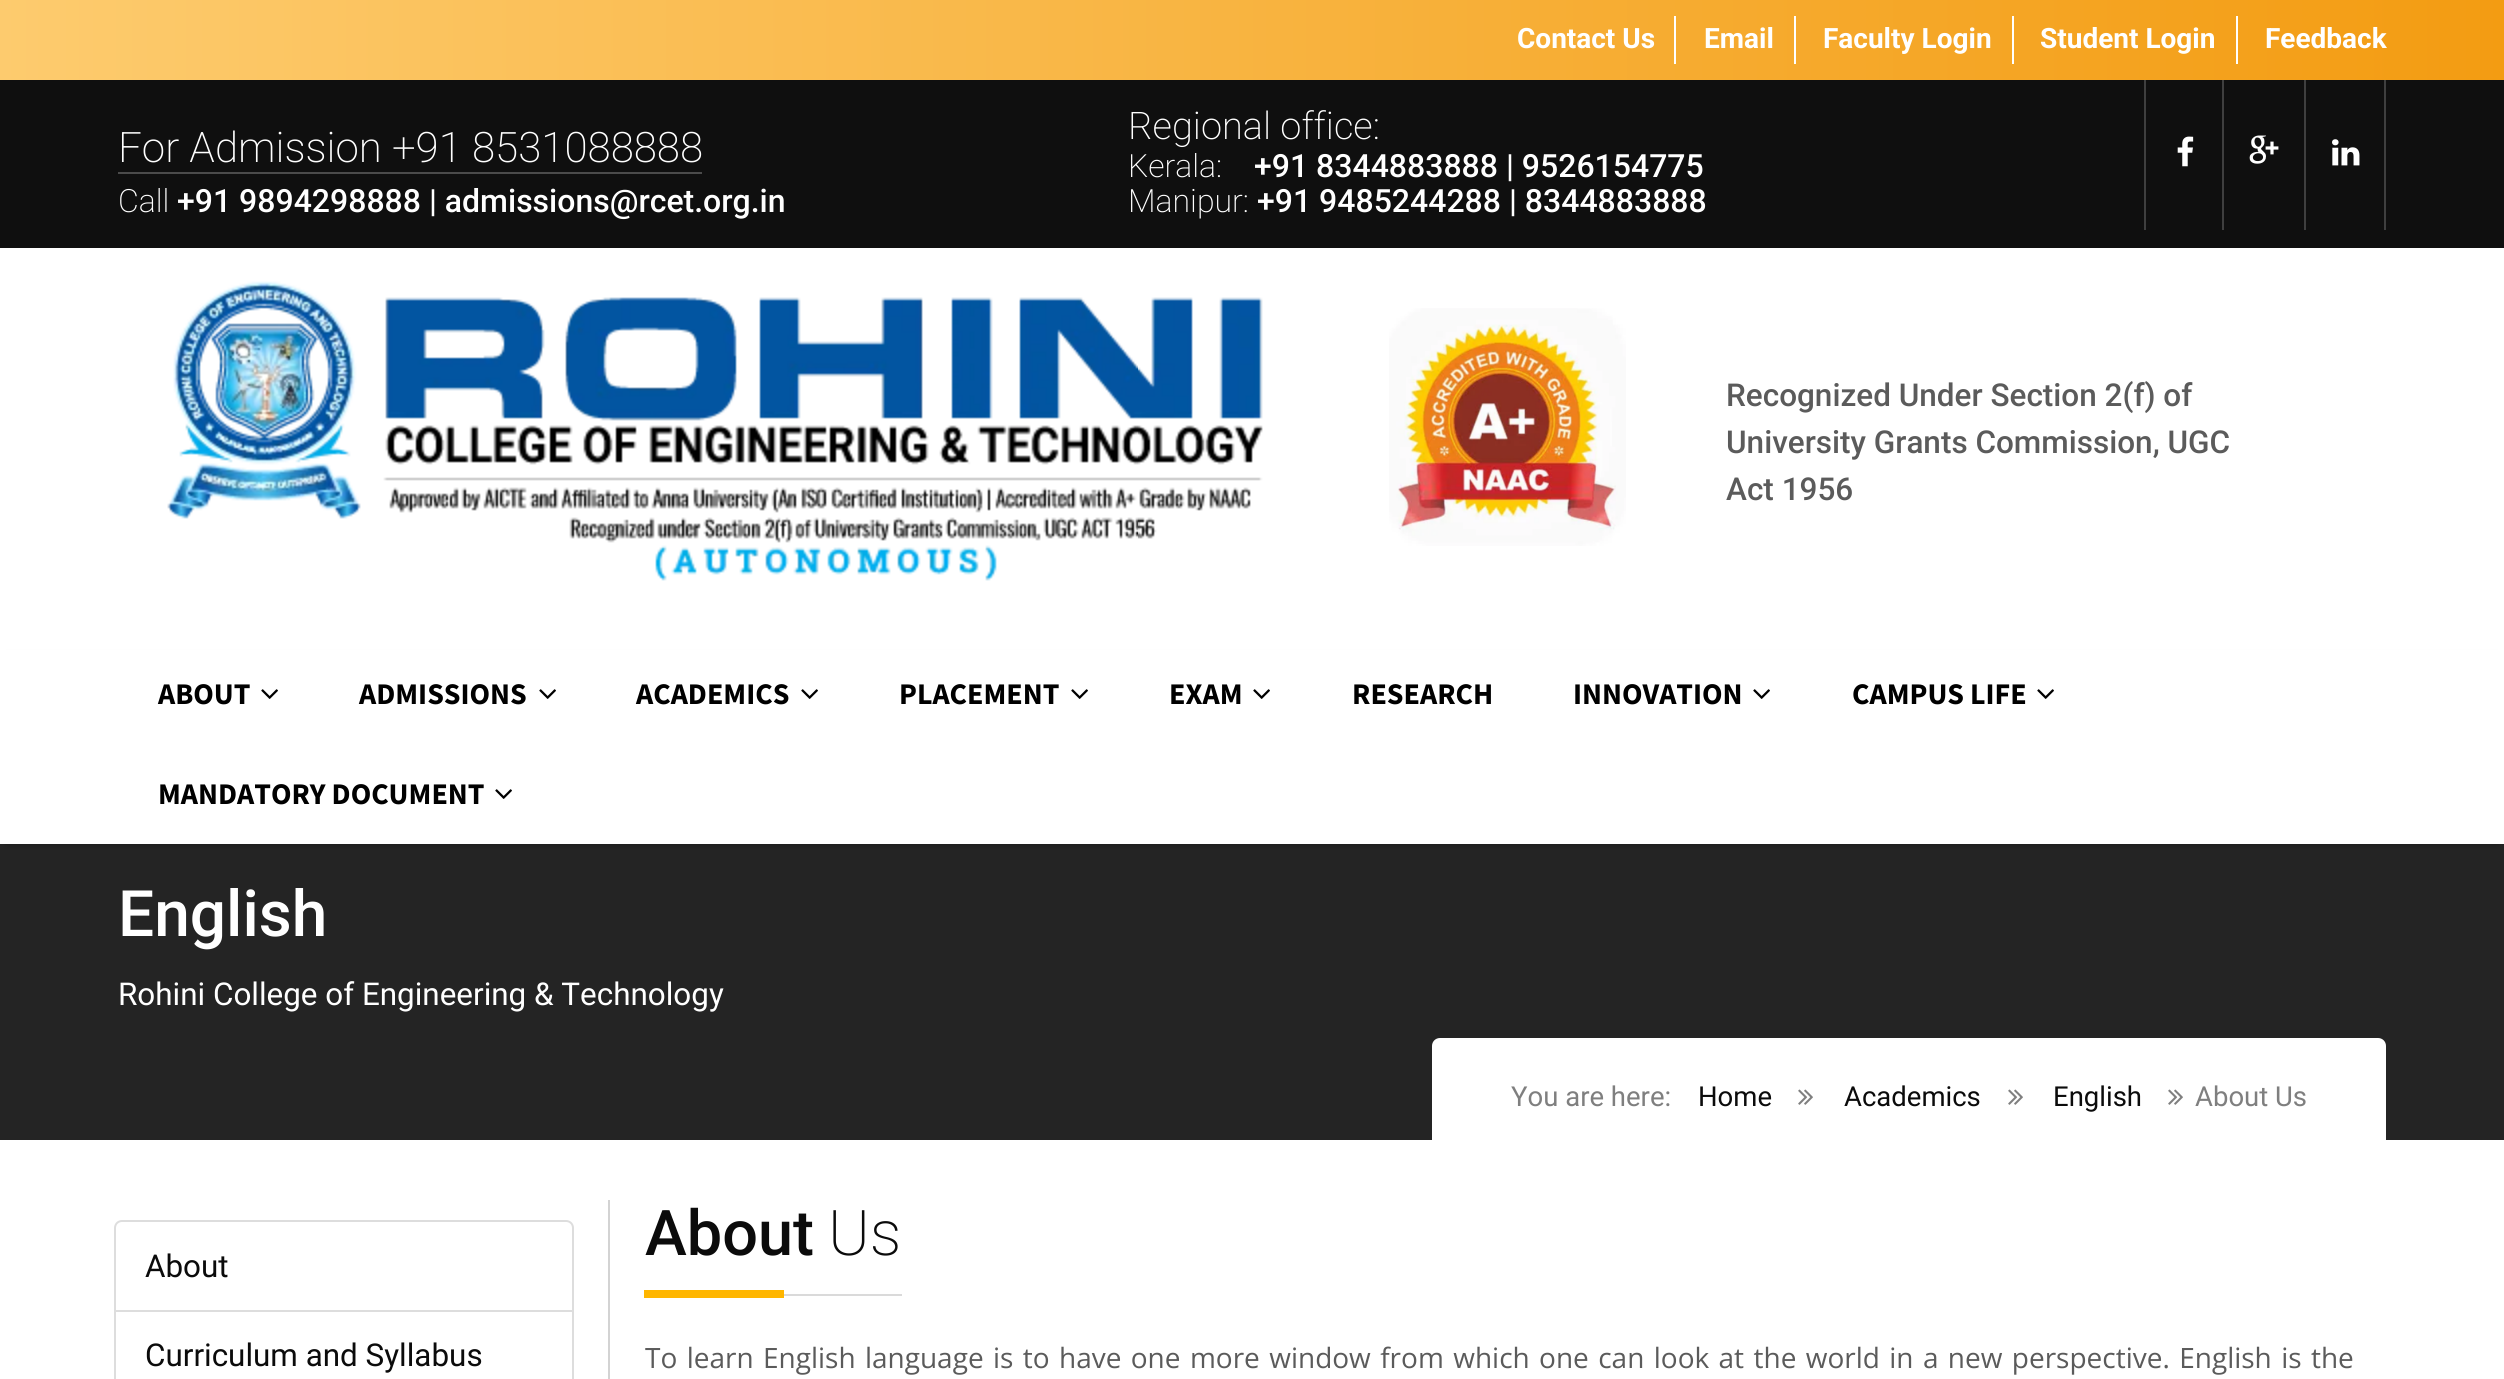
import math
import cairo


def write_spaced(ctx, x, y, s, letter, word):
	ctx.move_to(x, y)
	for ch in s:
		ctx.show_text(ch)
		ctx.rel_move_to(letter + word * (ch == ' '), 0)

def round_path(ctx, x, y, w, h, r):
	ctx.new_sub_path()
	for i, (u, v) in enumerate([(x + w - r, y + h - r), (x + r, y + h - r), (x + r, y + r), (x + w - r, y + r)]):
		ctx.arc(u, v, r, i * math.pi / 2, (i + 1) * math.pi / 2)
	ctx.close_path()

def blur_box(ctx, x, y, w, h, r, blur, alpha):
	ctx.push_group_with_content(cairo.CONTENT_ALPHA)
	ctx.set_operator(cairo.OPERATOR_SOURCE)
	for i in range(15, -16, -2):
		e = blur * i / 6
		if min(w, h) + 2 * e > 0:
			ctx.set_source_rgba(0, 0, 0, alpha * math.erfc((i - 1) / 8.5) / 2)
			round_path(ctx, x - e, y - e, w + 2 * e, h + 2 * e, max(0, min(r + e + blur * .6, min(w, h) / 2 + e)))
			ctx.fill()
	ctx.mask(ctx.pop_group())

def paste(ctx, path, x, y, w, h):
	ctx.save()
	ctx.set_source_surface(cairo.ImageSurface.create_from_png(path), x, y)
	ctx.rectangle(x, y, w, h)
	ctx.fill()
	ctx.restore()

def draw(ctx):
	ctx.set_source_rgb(1, 1, 1)
	ctx.paint()
	gradient = cairo.LinearGradient(0, 40, 2504, 40)
	gradient.add_color_stop_rgba(0, 0.992, 0.796, 0.431, 1)
	gradient.add_color_stop_rgba(1, 0.953, 0.612, 0.071, 1)
	ctx.set_source(gradient)
	ctx.rectangle(0, 0, 2504, 80)
	ctx.fill()
	ctx.set_source_rgb(1, 1, 1)
	ctx.rectangle(1674, 16, 2, 48)
	ctx.fill()
	ctx.select_font_face('Roboto', cairo.FONT_SLANT_NORMAL, cairo.FONT_WEIGHT_BOLD)
	ctx.set_font_size(28)
	ctx.move_to(1517, 48)
	ctx.show_text('Contact Us')
	ctx.rectangle(1794, 16, 2, 48)
	ctx.fill()
	ctx.move_to(1704, 48)
	ctx.show_text('Email')
	ctx.rectangle(2012, 16, 2, 48)
	ctx.fill()
	ctx.move_to(1823, 48)
	ctx.show_text('Faculty Login')
	ctx.rectangle(2236, 16, 2, 48)
	ctx.fill()
	ctx.move_to(2040, 48)
	ctx.show_text('Student Login')
	ctx.move_to(2265, 48)
	ctx.show_text('Feedback')
	ctx.set_source_rgb(0.059, 0.059, 0.059)
	ctx.rectangle(0, 80, 2504, 168)
	ctx.fill()
	ctx.select_font_face('Roboto ExtraLight')
	ctx.set_font_size(42)
	ctx.set_source_rgb(1, 1, 1)
	ctx.move_to(118, 162)
	ctx.show_text('For Admission +91 8531088888')
	ctx.set_source_rgb(0.294, 0.294, 0.294)
	ctx.rectangle(118, 172, 584, 2)
	ctx.fill()
	ctx.set_font_size(32)
	ctx.set_source_rgb(1, 1, 1)
	ctx.move_to(118, 212)
	ctx.show_text('Call')
	ctx.select_font_face('Roboto Medium')
	ctx.move_to(177, 212)
	ctx.show_text('+91 9894298888 | admissions@rcet.org.in')
	ctx.select_font_face('Roboto ExtraLight')
	ctx.set_font_size(38)
	ctx.move_to(1128, 139)
	ctx.show_text('Regional office:')
	ctx.set_font_size(32)
	ctx.move_to(1128, 177)
	ctx.show_text('Kerala:')
	ctx.select_font_face('Roboto Medium')
	ctx.move_to(1254, 177)
	ctx.show_text('+91 8344883888 | 9526154775')
	ctx.select_font_face('Roboto ExtraLight')
	ctx.move_to(1128, 212)
	ctx.show_text('Manipur:')
	ctx.select_font_face('Roboto Medium')
	ctx.move_to(1257, 212)
	ctx.show_text('+91 9485244288 | 8344883888')
	ctx.set_source_rgb(0.247, 0.247, 0.247)
	ctx.rectangle(2222, 80, 2, 150)
	ctx.fill()
	ctx.rectangle(2144, 80, 2, 150)
	ctx.fill()
	paste(ctx, 'media/1.png', 2177, 136, 17, 31)
	ctx.rectangle(2304, 80, 2, 150)
	ctx.fill()
	paste(ctx, 'media/2.png', 2249, 135, 30, 29)
	ctx.rectangle(2384, 80, 2, 150)
	ctx.fill()
	paste(ctx, 'media/3.png', 2332, 139, 28, 27)
	paste(ctx, 'media/4.png', 167, 281, 1096, 300)
	paste(ctx, 'media/5.png', 1389, 308, 237, 238)
	ctx.set_font_size(31.5)
	ctx.set_source_rgb(0.357, 0.357, 0.357)
	for x, y, s in [
		(1726, 406, 'Recognized Under Section 2(f) of'),
		(1726, 453, 'University Grants Commission, UGC'),
		(1726, 500, 'Act 1956'),
	]:
		ctx.move_to(x, y)
		ctx.show_text(s)
	ctx.set_source_rgb(0.141, 0.141, 0.141)
	ctx.rectangle(0, 844, 2504, 296)
	ctx.fill()
	ctx.set_source_rgb(0, 0, 0)
	blur_box(ctx, 6, 656, 2492, 188, 0, 3, 0.35)
	ctx.set_source_rgb(1, 1, 1)
	ctx.rectangle(0, 650, 2504, 194)
	ctx.fill()
	ctx.select_font_face('Source Sans Pro', cairo.FONT_SLANT_NORMAL, cairo.FONT_WEIGHT_BOLD)
	ctx.set_font_size(30)
	ctx.set_source_rgb(0, 0, 0)
	ctx.move_to(158, 704)
	ctx.show_text('ABOUT')
	paste(ctx, 'media/6.png', 261, 689, 17, 10)
	ctx.move_to(359, 704)
	ctx.show_text('ADMISSIONS')
	paste(ctx, 'media/6.png', 539, 689, 17, 10)
	ctx.move_to(636, 704)
	ctx.show_text('ACADEMICS')
	paste(ctx, 'media/6.png', 801, 689, 17, 10)
	ctx.move_to(899, 704)
	ctx.show_text('PLACEMENT')
	paste(ctx, 'media/6.png', 1071, 689, 17, 10)
	ctx.move_to(1169, 704)
	ctx.show_text('EXAM')
	paste(ctx, 'media/6.png', 1253, 689, 17, 10)
	ctx.move_to(1352, 704)
	ctx.show_text('RESEARCH')
	ctx.move_to(1573, 704)
	ctx.show_text('INNOVATION')
	paste(ctx, 'media/6.png', 1753, 689, 17, 10)
	ctx.move_to(1852, 704)
	ctx.show_text('CAMPUS LIFE')
	paste(ctx, 'media/6.png', 2037, 689, 17, 10)
	ctx.move_to(158, 804)
	ctx.show_text('MANDATORY DOCUMENT')
	paste(ctx, 'media/6.png', 495, 789, 17, 10)
	ctx.select_font_face('Roboto Medium')
	ctx.set_font_size(64)
	ctx.set_source_rgb(1, 1, 1)
	ctx.move_to(118, 936)
	ctx.show_text('English')
	ctx.select_font_face('Roboto')
	ctx.set_font_size(31.4)
	ctx.move_to(118, 1005)
	ctx.show_text('Rohini College of Engineering & Technology')
	ctx.new_path()
	ctx.move_to(1440, 1038)
	ctx.line_to(2378, 1038)
	ctx.curve_to(2382.5, 1038, 2386, 1041.5, 2386, 1046)
	ctx.line_to(2386, 1140)
	ctx.line_to(1432, 1140)
	ctx.line_to(1432, 1046)
	ctx.curve_to(1432, 1041.5, 1435.5, 1038, 1440, 1038)
	ctx.close_path()
	ctx.fill()
	ctx.set_font_size(27.5)
	ctx.set_source_rgb(0.498, 0.498, 0.498)
	ctx.move_to(1511, 1106)
	ctx.show_text('You are here:')
	ctx.set_source_rgb(0.043, 0.043, 0.043)
	ctx.move_to(1698, 1106)
	ctx.show_text('Home')
	paste(ctx, 'media/7.png', 1798, 1089, 15, 16)
	ctx.move_to(1844, 1106)
	ctx.show_text('Academics')
	paste(ctx, 'media/7.png', 2008, 1089, 15, 16)
	ctx.move_to(2053, 1106)
	ctx.show_text('English')
	paste(ctx, 'media/7.png', 2168, 1089, 15, 16)
	ctx.set_source_rgb(0.498, 0.498, 0.498)
	ctx.move_to(2195, 1106)
	ctx.show_text('About Us')
	ctx.new_path()
	ctx.move_to(122, 1221)
	ctx.line_to(566, 1221)
	ctx.curve_to(570, 1221, 573, 1224, 573, 1228)
	ctx.line_to(573, 1311)
	ctx.line_to(115, 1311)
	ctx.line_to(115, 1228)
	ctx.curve_to(115, 1224, 118, 1221, 122, 1221)
	ctx.close_path()
	ctx.set_source_rgb(0.867, 0.867, 0.867)
	ctx.stroke()
	ctx.set_font_size(31.4)
	ctx.set_source_rgb(0.043, 0.043, 0.043)
	ctx.move_to(145, 1277)
	ctx.show_text('About')
	ctx.rectangle(115, 1311, 458, 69)
	ctx.set_source_rgb(0.867, 0.867, 0.867)
	ctx.stroke()
	ctx.set_source_rgb(0.043, 0.043, 0.043)
	ctx.move_to(145, 1366)
	ctx.show_text('Curriculum and Syllabus')
	ctx.set_source_rgb(0.827, 0.827, 0.827)
	ctx.rectangle(608, 1200, 2, 179)
	ctx.fill()
	ctx.set_source_rgb(0.855, 0.855, 0.855)
	ctx.rectangle(784, 1294, 118, 2)
	ctx.fill()
	ctx.select_font_face('Roboto Medium')
	ctx.set_font_size(63)
	ctx.set_source_rgb(0.043, 0.043, 0.043)
	ctx.move_to(645, 1255)
	ctx.show_text('About')
	ctx.select_font_face('Roboto ExtraLight')
	ctx.move_to(828, 1255)
	ctx.show_text('Us')
	ctx.set_source_rgb(1, 0.714, 0)
	ctx.rectangle(644, 1290, 140, 8)
	ctx.fill()
	ctx.select_font_face('Open Sans')
	ctx.set_font_size(28)
	ctx.set_source_rgb(0.357, 0.357, 0.357)
	write_spaced(ctx, 645, 1368, 'To learn English language is to have one more window from which one can look at the world in a new perspective. English is the', 0, 2.1)


surface = cairo.ImageSurface(cairo.FORMAT_RGB24, 2504, 1379)
ctx = cairo.Context(surface)
options = cairo.FontOptions()
options.set_hint_metrics(cairo.HINT_METRICS_OFF)
options.set_hint_style(cairo.HINT_STYLE_NONE)
ctx.set_font_options(options)
ctx.set_miter_limit(4)
draw(ctx)
surface.write_to_png('image.png')
